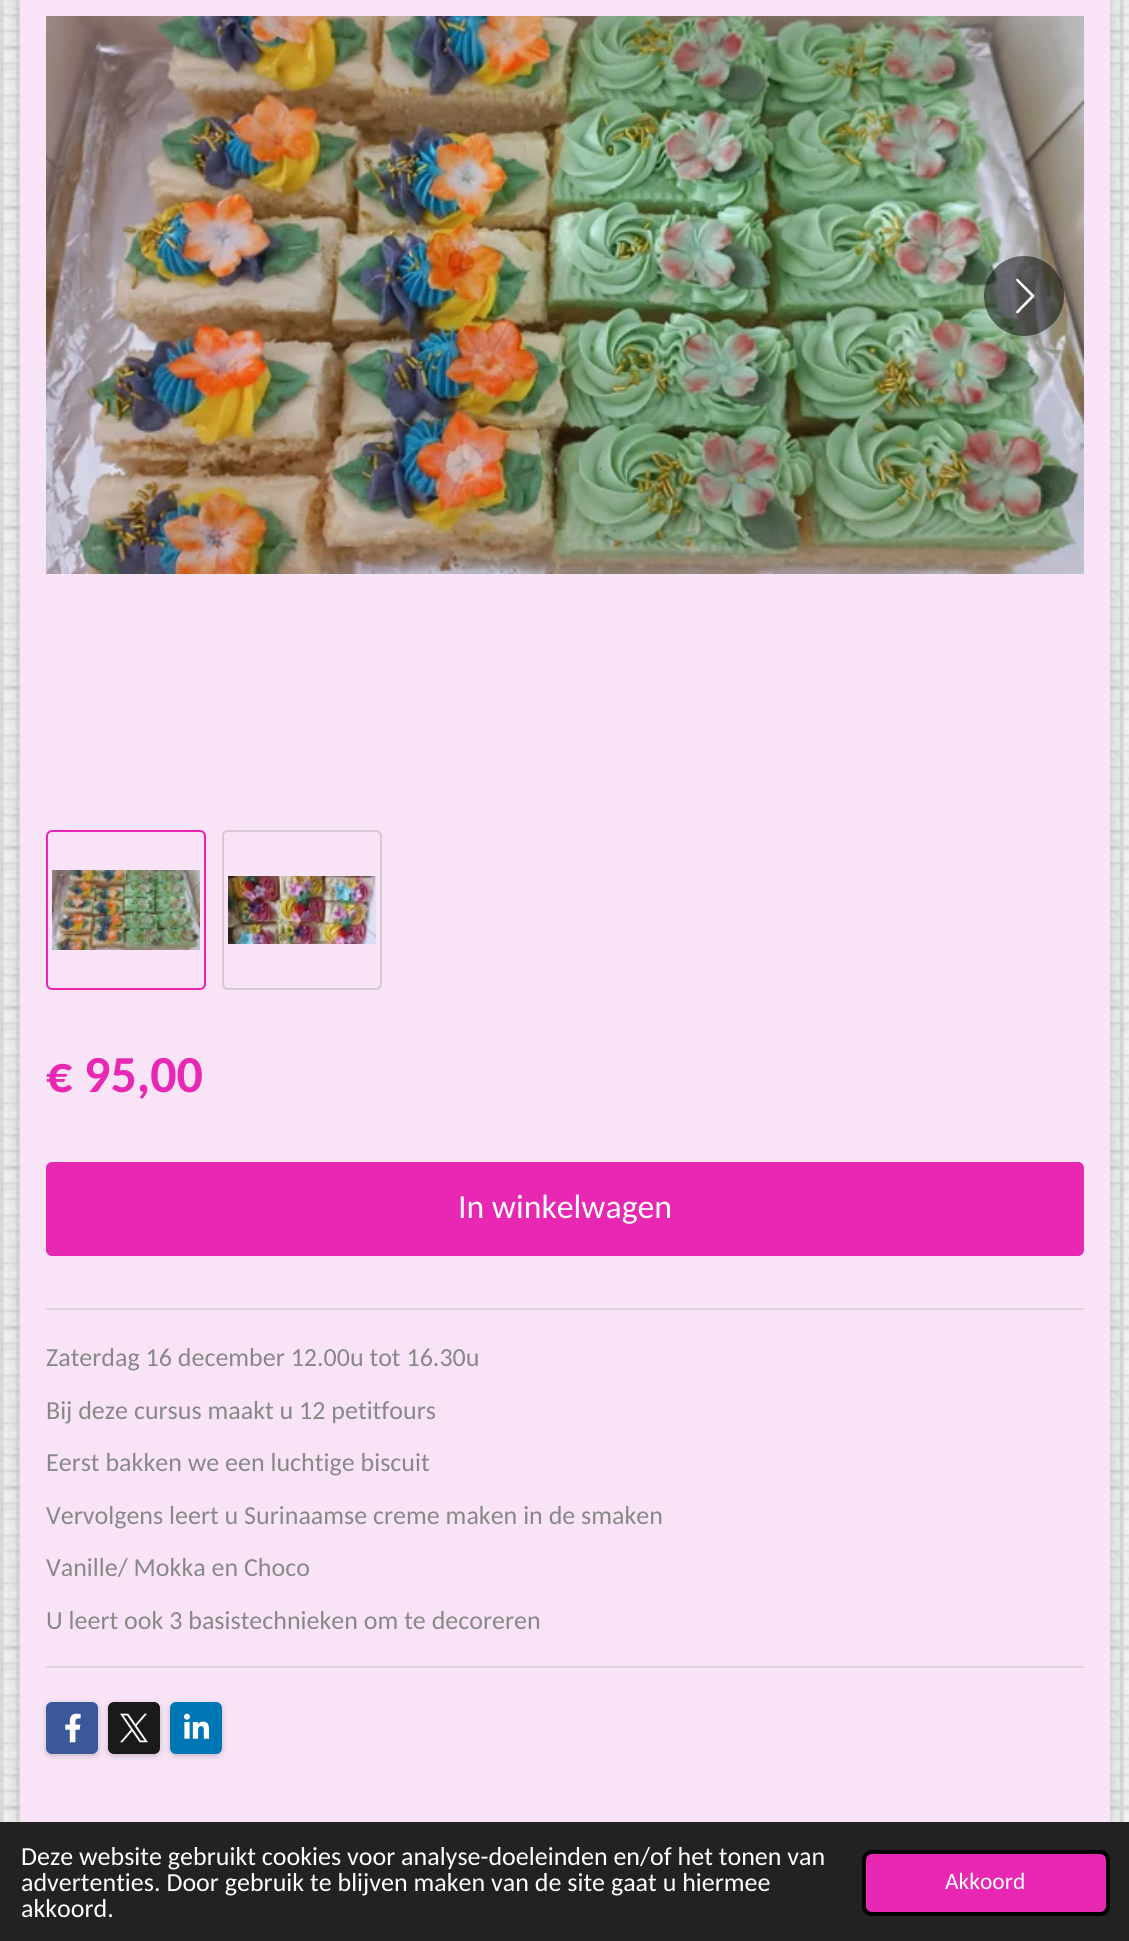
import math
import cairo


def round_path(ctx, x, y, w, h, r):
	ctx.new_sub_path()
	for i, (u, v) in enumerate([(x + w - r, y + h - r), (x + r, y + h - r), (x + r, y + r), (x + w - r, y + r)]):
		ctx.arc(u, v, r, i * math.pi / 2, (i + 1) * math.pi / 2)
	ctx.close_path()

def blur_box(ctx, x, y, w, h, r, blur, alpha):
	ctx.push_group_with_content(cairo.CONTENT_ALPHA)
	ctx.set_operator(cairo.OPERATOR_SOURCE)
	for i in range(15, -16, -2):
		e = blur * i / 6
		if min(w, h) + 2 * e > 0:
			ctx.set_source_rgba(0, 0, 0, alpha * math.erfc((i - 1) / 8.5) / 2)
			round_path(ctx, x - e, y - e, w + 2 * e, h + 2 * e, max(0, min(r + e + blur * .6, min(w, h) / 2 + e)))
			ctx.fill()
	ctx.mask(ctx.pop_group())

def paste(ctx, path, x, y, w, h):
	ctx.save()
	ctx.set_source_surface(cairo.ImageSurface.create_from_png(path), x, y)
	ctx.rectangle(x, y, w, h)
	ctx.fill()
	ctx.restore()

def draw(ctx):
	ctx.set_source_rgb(1, 1, 1)
	ctx.paint()
	paste(ctx, 'media/1.png', 0, 0, 1129, 1822)
	ctx.set_source_rgb(0, 0, 0)
	blur_box(ctx, 20, -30, 1090, 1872, 0, 10, 0.2)
	ctx.set_source_rgb(0.969, 0.894, 0.961)
	ctx.rectangle(20, 0, 1090, 1822)
	ctx.fill()
	paste(ctx, 'media/2.png', 46, 16, 1038, 558)
	ctx.set_source_rgba(0, 0, 0, 0.5)
	ctx.arc(1024, 296, 40, 0, 2 * math.pi)
	ctx.fill()
	ctx.set_source_rgb(1, 1, 1)
	ctx.new_path()
	ctx.move_to(1016.5, 311)
	ctx.line_to(1031, 296)
	ctx.line_to(1019, 283.5)
	ctx.curve_to(1018.5, 283, 1014, 279.5, 1017.5, 278.5)
	ctx.line_to(1018, 279)
	ctx.line_to(1034.5, 295.5)
	ctx.line_to(1034.5, 296.5)
	ctx.line_to(1021, 310)
	ctx.curve_to(1021, 310.5, 1017, 315.5, 1016, 312)
	ctx.close_path()
	ctx.fill()
	round_path(ctx, 47, 831, 158, 158, 5)
	ctx.set_source_rgb(0.91, 0.153, 0.702)
	ctx.stroke()
	paste(ctx, 'media/3.png', 52, 870, 148, 80)
	round_path(ctx, 223, 831, 158, 158, 5)
	ctx.set_source_rgb(0.839, 0.784, 0.831)
	ctx.stroke()
	paste(ctx, 'media/4.png', 228, 876, 148, 68)
	ctx.select_font_face('Carlito', cairo.FONT_SLANT_NORMAL, cairo.FONT_WEIGHT_BOLD)
	ctx.set_font_size(52)
	ctx.set_source_rgb(0.91, 0.153, 0.702)
	ctx.move_to(46, 1092)
	ctx.show_text('€ 95,00')
	round_path(ctx, 46, 1162, 1038, 94, 6)
	ctx.fill()
	ctx.select_font_face('Carlito')
	ctx.set_font_size(33.75)
	ctx.set_source_rgb(1, 1, 1)
	ctx.move_to(458, 1218)
	ctx.show_text('In winkelwagen')
	ctx.set_source_rgb(0.882, 0.824, 0.875)
	ctx.rectangle(46, 1308, 1038, 2)
	ctx.fill()
	ctx.set_font_size(26)
	ctx.set_source_rgb(0.533, 0.533, 0.533)
	for x, y, s in [
		(46, 1366, 'Zaterdag 16 december 12.00u tot 16.30u'),
		(46, 1419, 'Bij deze cursus maakt u 12 petitfours'),
		(46, 1471, 'Eerst bakken we een luchtige biscuit'),
		(46, 1524, 'Vervolgens leert u Surinaamse creme maken in de smaken'),
		(46, 1576, 'Vanille/ Mokka en Choco'),
		(46, 1629, 'U leert ook 3 basistechnieken om te decoreren'),
	]:
		ctx.move_to(x, y)
		ctx.show_text(s)
	ctx.set_source_rgb(0.882, 0.824, 0.875)
	ctx.rectangle(46, 1666, 1038, 2)
	ctx.fill()
	ctx.set_source_rgb(0, 0, 0)
	blur_box(ctx, 46, 1704, 52, 52, 6, 3, 0.2)
	ctx.set_source_rgb(0.231, 0.349, 0.596)
	round_path(ctx, 46, 1702, 52, 52, 6)
	ctx.fill()
	paste(ctx, 'media/5.png', 65, 1713, 16, 30)
	ctx.set_source_rgb(0, 0, 0)
	blur_box(ctx, 108, 1704, 52, 52, 6, 3, 0.2)
	ctx.set_source_rgb(0.102, 0.102, 0.102)
	round_path(ctx, 108, 1702, 52, 52, 6)
	ctx.fill()
	paste(ctx, 'media/6.png', 120, 1713, 28, 30)
	ctx.set_source_rgb(0, 0, 0)
	blur_box(ctx, 170, 1704, 52, 52, 6, 3, 0.2)
	ctx.set_source_rgb(0, 0.467, 0.71)
	round_path(ctx, 170, 1702, 52, 52, 6)
	ctx.fill()
	paste(ctx, 'media/7.png', 184, 1713, 26, 26)
	ctx.set_source_rgb(0.133, 0.133, 0.133)
	ctx.rectangle(0, 1822, 1129, 119)
	ctx.fill()
	ctx.set_source_rgb(1, 1, 1)
	for x, y, s in [
		(21, 1865, 'Deze website gebruikt cookies voor analyse-doeleinden en/of het tonen van'),
		(21, 1891, 'advertenties. Door gebruik te blijven maken van de site gaat u hiermee'),
		(21, 1917, 'akkoord.'),
	]:
		ctx.move_to(x, y)
		ctx.show_text(s)
	ctx.set_source_rgb(0.91, 0.153, 0.702)
	round_path(ctx, 864, 1852, 244, 62, 8)
	ctx.fill_preserve()
	ctx.set_source_rgb(0, 0, 0)
	ctx.set_line_width(4)
	ctx.stroke()
	ctx.set_font_size(23.5)
	ctx.set_source_rgb(1, 1, 1)
	ctx.move_to(945, 1889)
	ctx.show_text('Akkoord')


surface = cairo.ImageSurface(cairo.FORMAT_RGB24, 1129, 1941)
ctx = cairo.Context(surface)
options = cairo.FontOptions()
options.set_hint_metrics(cairo.HINT_METRICS_OFF)
options.set_hint_style(cairo.HINT_STYLE_NONE)
ctx.set_font_options(options)
ctx.set_miter_limit(4)
draw(ctx)
surface.write_to_png('image.png')
